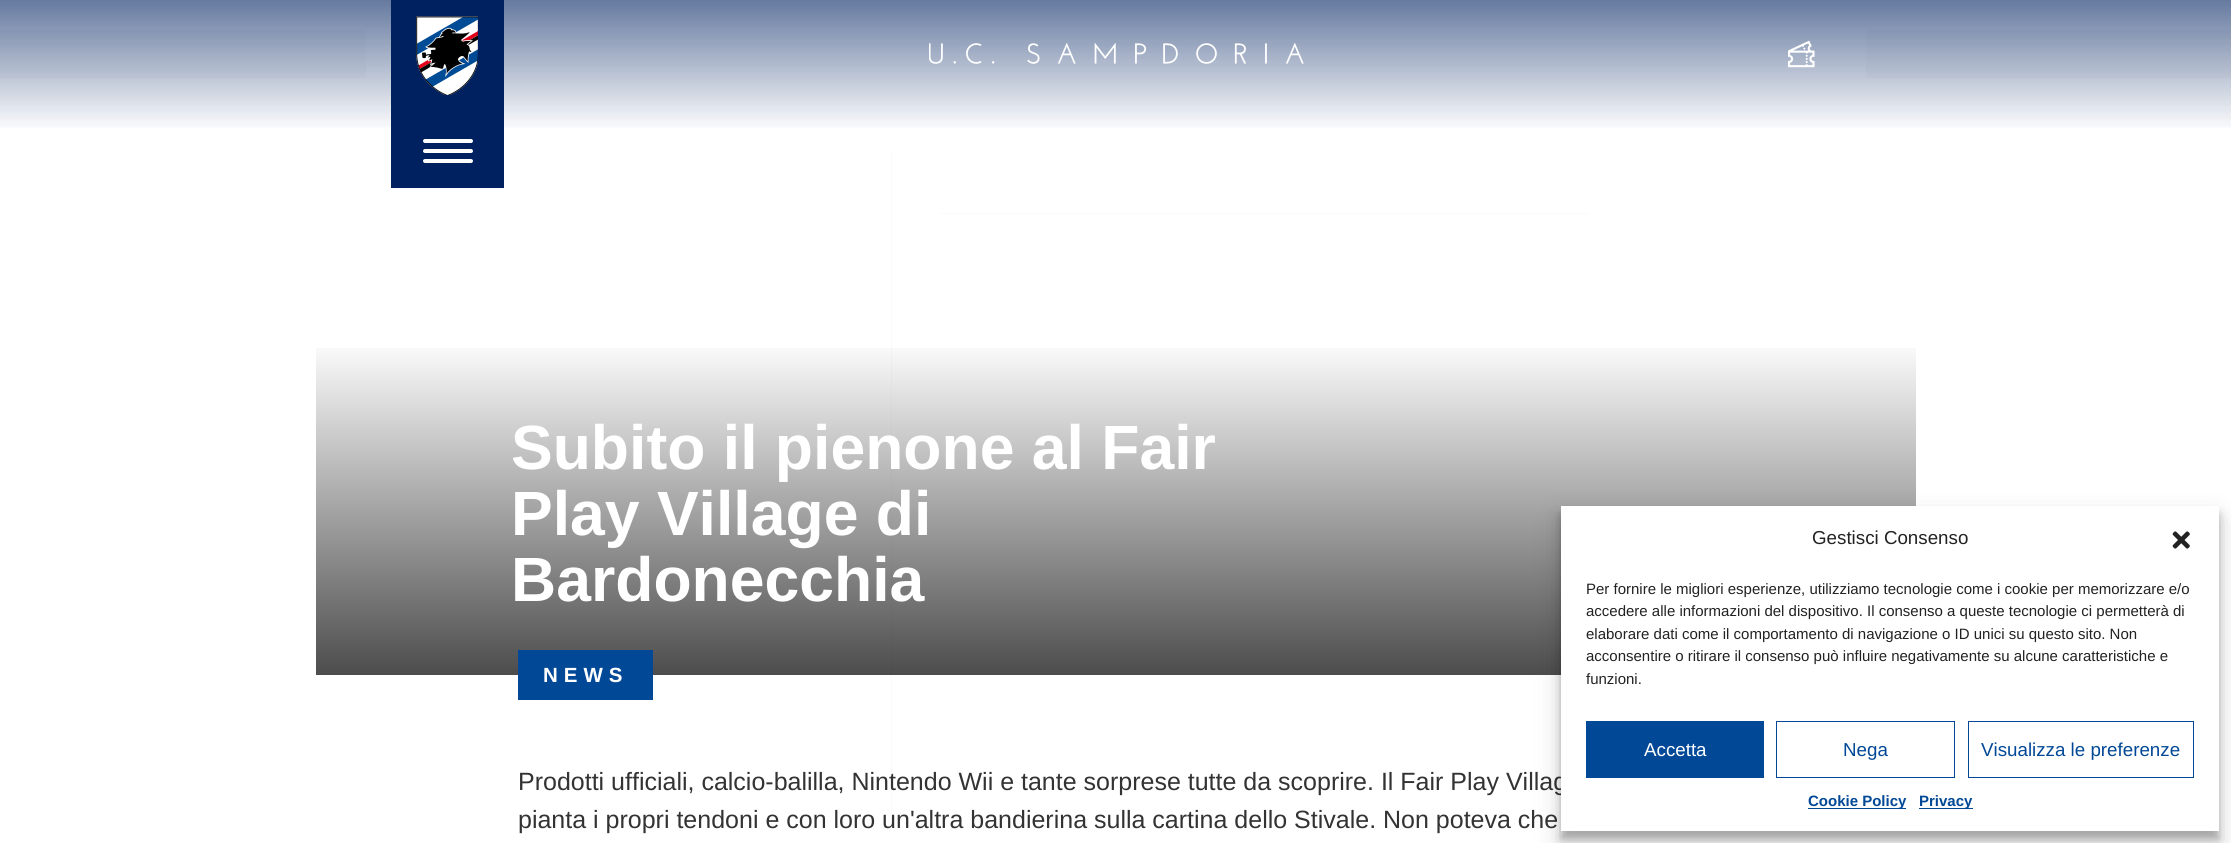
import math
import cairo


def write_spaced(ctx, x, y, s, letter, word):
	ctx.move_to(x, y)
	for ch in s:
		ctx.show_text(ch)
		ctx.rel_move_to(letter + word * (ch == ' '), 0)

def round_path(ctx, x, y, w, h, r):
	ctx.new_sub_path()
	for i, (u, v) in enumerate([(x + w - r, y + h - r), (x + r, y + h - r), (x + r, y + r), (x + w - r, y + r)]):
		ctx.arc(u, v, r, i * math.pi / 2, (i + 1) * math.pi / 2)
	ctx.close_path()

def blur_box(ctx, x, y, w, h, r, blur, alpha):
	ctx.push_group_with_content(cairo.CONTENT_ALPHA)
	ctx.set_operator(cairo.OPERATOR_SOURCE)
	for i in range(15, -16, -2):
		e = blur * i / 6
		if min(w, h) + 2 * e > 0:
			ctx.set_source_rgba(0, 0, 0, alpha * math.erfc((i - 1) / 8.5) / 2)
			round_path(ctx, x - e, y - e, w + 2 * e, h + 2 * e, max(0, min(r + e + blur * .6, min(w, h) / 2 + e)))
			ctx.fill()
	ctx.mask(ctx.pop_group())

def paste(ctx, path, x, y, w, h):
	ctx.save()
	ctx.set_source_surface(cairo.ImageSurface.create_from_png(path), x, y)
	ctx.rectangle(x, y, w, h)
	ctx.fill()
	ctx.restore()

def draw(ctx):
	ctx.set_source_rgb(1, 1, 1)
	ctx.paint()
	ctx.set_source_rgb(0.98, 0.98, 0.98)
	ctx.rectangle(0, 30, 366, 48)
	ctx.fill()
	ctx.rectangle(1866, 30, 365, 48)
	ctx.fill()
	gradient = cairo.LinearGradient(1116, 0, 1116, 133)
	gradient.add_color_stop_rgba(0, 0, 0.129, 0.376, 0.6)
	gradient.add_color_stop_rgba(1, 0, 0.129, 0.376, 0)
	ctx.set_source(gradient)
	ctx.rectangle(0, 0, 2231, 128)
	ctx.fill()
	ctx.set_source_rgb(0, 0.129, 0.376)
	ctx.rectangle(391, 0, 113, 188)
	ctx.fill()
	paste(ctx, 'media/1.png', 416, 16, 62, 79)
	ctx.set_source_rgb(1, 1, 1)
	round_path(ctx, 423, 139, 50, 4, 2)
	ctx.fill()
	round_path(ctx, 423, 149, 50, 4, 2)
	ctx.fill()
	round_path(ctx, 423, 159, 50, 4, 2)
	ctx.fill()
	ctx.set_source_rgb(0.98, 0.98, 0.98)
	ctx.rectangle(891, 150, 1, 675)
	ctx.fill()
	ctx.rectangle(941, 213, 648, 1)
	ctx.fill()
	paste(ctx, 'media/2.png', 929, 43, 375, 21)
	paste(ctx, 'media/3.png', 1788, 40, 27, 28)
	gradient = cairo.LinearGradient(1116, 0, 1116, 675)
	gradient.add_color_stop_rgba(0.5, 0, 0, 0, 0)
	gradient.add_color_stop_rgba(1, 0, 0, 0, 0.7)
	ctx.set_source(gradient)
	ctx.rectangle(316, 348, 1600, 327)
	ctx.fill()
	ctx.select_font_face('Liberation Sans', cairo.FONT_SLANT_NORMAL, cairo.FONT_WEIGHT_BOLD)
	ctx.set_font_size(62.5)
	ctx.set_source_rgb(1, 1, 1)
	for x, y, s in [
		(511, 469, 'Subito il pienone al Fair'),
		(511, 535, 'Play Village di'),
		(511, 601, 'Bardonecchia'),
	]:
		ctx.move_to(x, y)
		ctx.show_text(s)
	ctx.set_source_rgb(0.004, 0.282, 0.588)
	ctx.rectangle(518, 650, 135, 50)
	ctx.fill()
	ctx.set_font_size(20.5)
	ctx.set_source_rgb(1, 1, 1)
	write_spaced(ctx, 543, 682, 'NEWS', 6, 0)
	ctx.select_font_face('Liberation Sans')
	ctx.set_font_size(25)
	ctx.set_source_rgb(0.2, 0.2, 0.2)
	ctx.move_to(518, 790)
	ctx.show_text('Prodotti ufficiali, calcio-balilla, Nintendo Wii e tante sorprese tutte da scoprire. Il Fair Play Villag')
	ctx.move_to(518, 828)
	ctx.show_text('pianta i propri tendoni e con loro un\'altra bandierina sulla cartina dello Stivale. Non poteva che')
	ctx.set_source_rgb(0, 0, 0)
	blur_box(ctx, 1561, 514, 658, 325, 0, 4, 0.23)
	blur_box(ctx, 1561, 519, 658, 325, 0, 12.5, 0.19)
	ctx.set_source_rgb(1, 1, 1)
	ctx.rectangle(1561, 506, 658, 325)
	ctx.fill()
	ctx.set_font_size(18.75)
	ctx.set_source_rgb(0.133, 0.133, 0.133)
	ctx.move_to(1812, 544)
	ctx.show_text('Gestisci Consenso')
	paste(ctx, 'media/4.png', 2172, 531, 18, 18)
	ctx.set_font_size(15)
	for x, y, s in [
		(1586, 594, 'Per fornire le migliori esperienze, utilizziamo tecnologie come i cookie per memorizzare e/o'),
		(1586, 616, 'accedere alle informazioni del dispositivo. Il consenso a queste tecnologie ci permetterà di'),
		(1586, 639, 'elaborare dati come il comportamento di navigazione o ID unici su questo sito. Non'),
		(1586, 661, 'acconsentire o ritirare il consenso può influire negativamente su alcune caratteristiche e'),
		(1586, 684, 'funzioni.'),
	]:
		ctx.move_to(x, y)
		ctx.show_text(s)
	ctx.set_source_rgb(0.004, 0.282, 0.588)
	ctx.rectangle(1586, 721, 178, 57)
	ctx.fill()
	ctx.set_font_size(18.75)
	ctx.set_source_rgb(1, 1, 1)
	ctx.move_to(1644, 756)
	ctx.show_text('Accetta')
	ctx.rectangle(1776.5, 721.5, 178, 56)
	ctx.set_source_rgb(0.004, 0.282, 0.588)
	ctx.set_line_width(1)
	ctx.stroke()
	ctx.move_to(1843, 756)
	ctx.show_text('Nega')
	ctx.rectangle(1968.5, 721.5, 225, 56)
	ctx.stroke()
	ctx.move_to(1981, 756)
	ctx.show_text('Visualizza le preferenze')
	ctx.rectangle(1808, 808, 98, 1)
	ctx.fill()
	ctx.select_font_face('Liberation Sans', cairo.FONT_SLANT_NORMAL, cairo.FONT_WEIGHT_BOLD)
	ctx.set_font_size(15)
	ctx.move_to(1808, 806)
	ctx.show_text('Cookie Policy')
	ctx.rectangle(1919, 808, 54, 1)
	ctx.fill()
	ctx.move_to(1919, 806)
	ctx.show_text('Privacy')


surface = cairo.ImageSurface(cairo.FORMAT_RGB24, 2231, 843)
ctx = cairo.Context(surface)
options = cairo.FontOptions()
options.set_hint_metrics(cairo.HINT_METRICS_OFF)
options.set_hint_style(cairo.HINT_STYLE_NONE)
ctx.set_font_options(options)
ctx.set_miter_limit(4)
draw(ctx)
surface.write_to_png('image.png')
